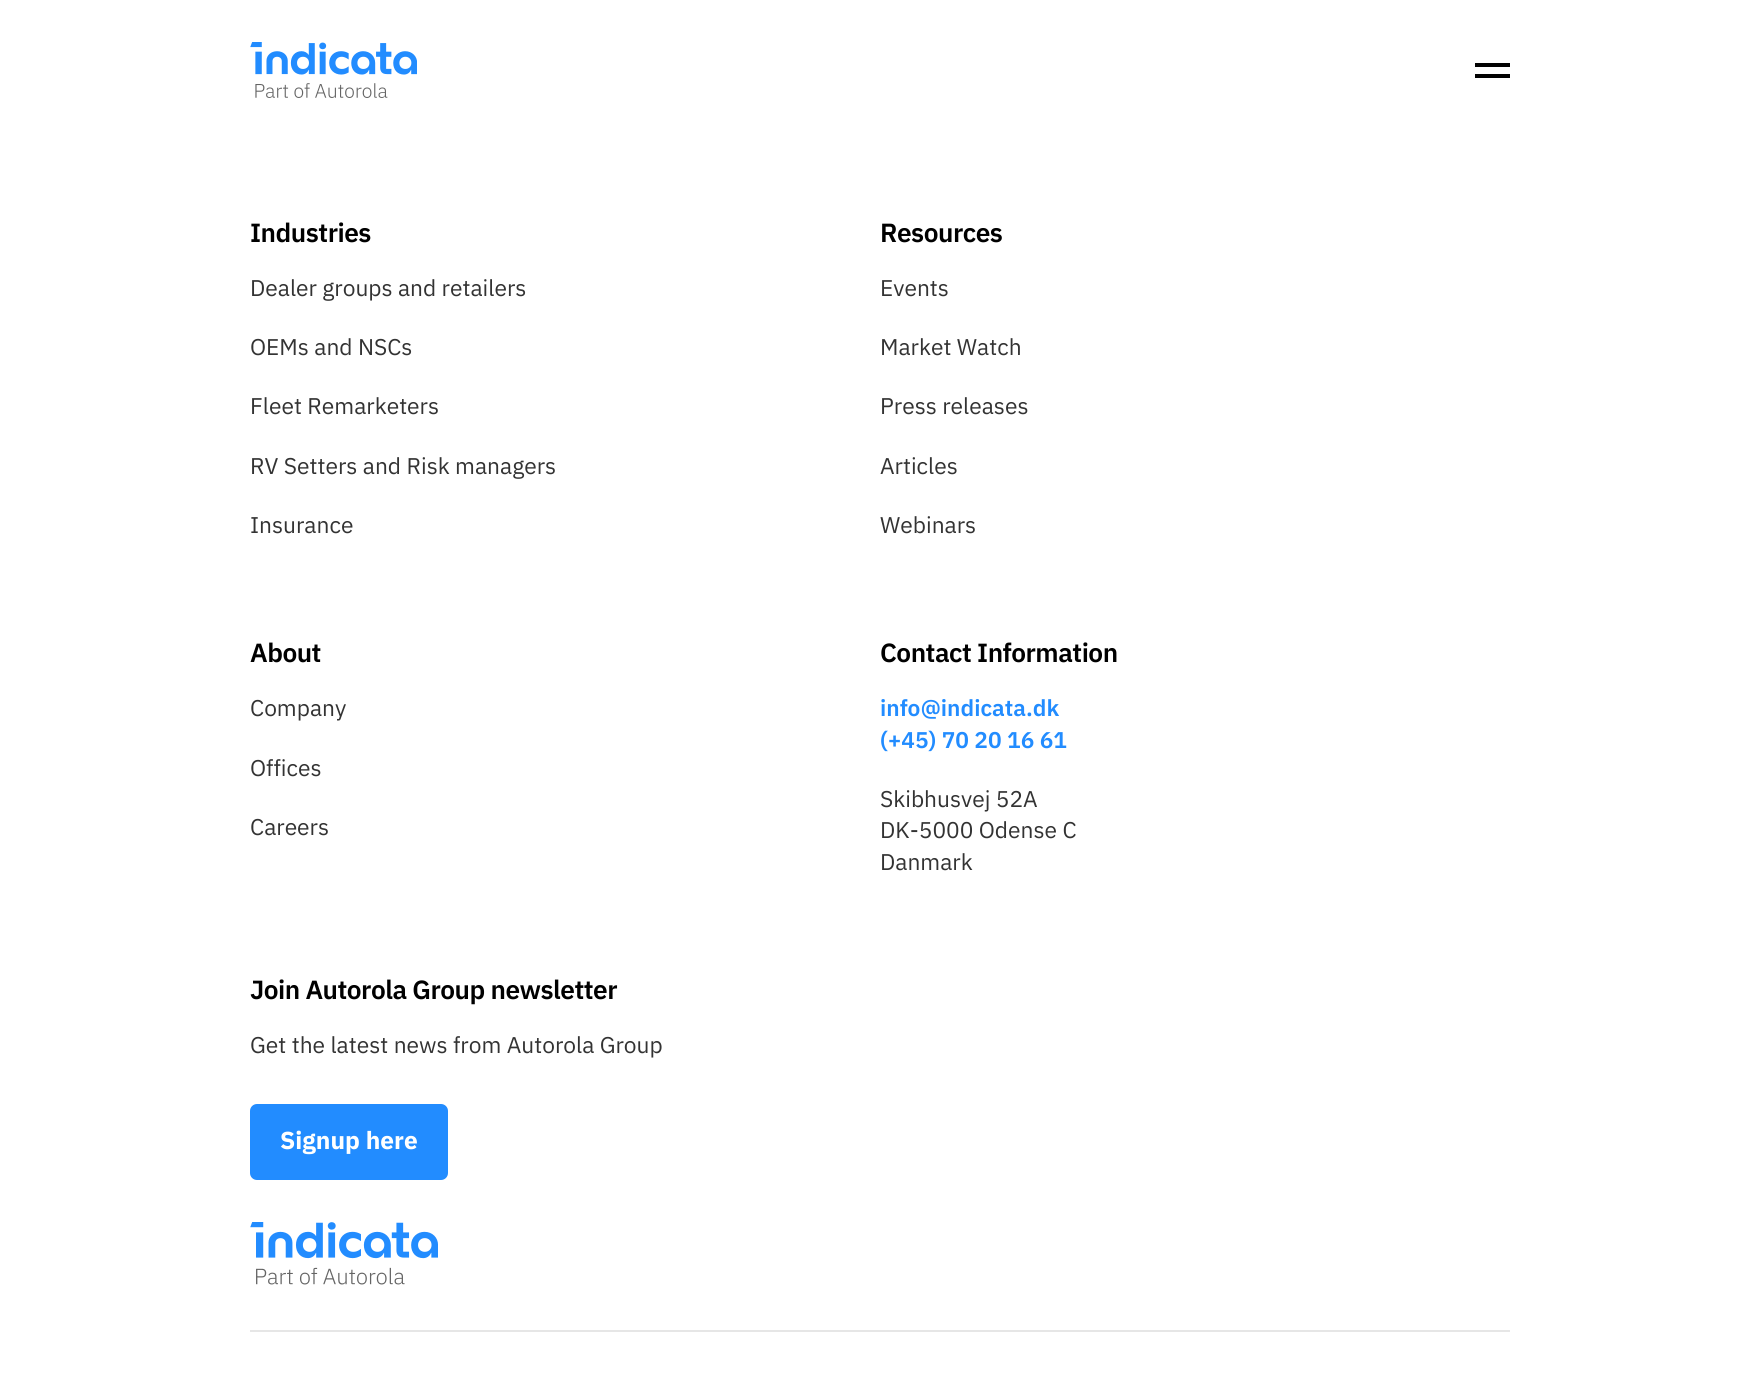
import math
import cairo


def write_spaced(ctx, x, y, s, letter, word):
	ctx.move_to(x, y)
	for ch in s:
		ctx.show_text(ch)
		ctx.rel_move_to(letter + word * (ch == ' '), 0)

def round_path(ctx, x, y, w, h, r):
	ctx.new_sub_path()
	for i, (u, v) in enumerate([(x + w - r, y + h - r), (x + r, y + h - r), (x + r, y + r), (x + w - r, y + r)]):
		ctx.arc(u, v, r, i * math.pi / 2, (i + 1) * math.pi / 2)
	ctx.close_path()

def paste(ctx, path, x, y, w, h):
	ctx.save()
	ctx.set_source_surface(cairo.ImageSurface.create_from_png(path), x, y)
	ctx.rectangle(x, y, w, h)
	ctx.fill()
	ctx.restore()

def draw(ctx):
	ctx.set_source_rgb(1, 1, 1)
	ctx.paint()
	paste(ctx, 'media/1.png', 250, 42, 167, 56)
	ctx.set_source_rgb(0.008, 0.008, 0.008)
	ctx.rectangle(1475, 63, 35, 4)
	ctx.fill()
	ctx.rectangle(1475, 74, 35, 4)
	ctx.fill()
	ctx.select_font_face('IBM Plex Sans SemiBold')
	ctx.set_font_size(26.25)
	ctx.set_source_rgb(0, 0, 0)
	write_spaced(ctx, 250, 242, 'Industries', -0.5, 0)
	ctx.select_font_face('IBM Plex Sans')
	ctx.set_font_size(22.75)
	ctx.set_source_rgb(0.2, 0.2, 0.2)
	for x, y, s in [
		(250, 296, 'Dealer groups and retailers'),
		(250, 355, 'OEMs and NSCs'),
		(250, 414, 'Fleet Remarketers'),
		(250, 474, 'RV Setters and Risk managers'),
		(250, 533, 'Insurance'),
	]:
		ctx.move_to(x, y)
		ctx.show_text(s)
	ctx.select_font_face('IBM Plex Sans SemiBold')
	ctx.set_font_size(26.25)
	ctx.set_source_rgb(0, 0, 0)
	write_spaced(ctx, 880, 242, 'Resources', -0.5, 0)
	ctx.select_font_face('IBM Plex Sans')
	ctx.set_font_size(22.75)
	ctx.set_source_rgb(0.2, 0.2, 0.2)
	for x, y, s in [
		(880, 296, 'Events'),
		(880, 355, 'Market Watch'),
		(880, 414, 'Press releases'),
		(880, 474, 'Articles'),
		(880, 533, 'Webinars'),
	]:
		ctx.move_to(x, y)
		ctx.show_text(s)
	ctx.select_font_face('IBM Plex Sans SemiBold')
	ctx.set_font_size(26.25)
	ctx.set_source_rgb(0, 0, 0)
	write_spaced(ctx, 250, 662, 'About', -0.5, 0)
	ctx.select_font_face('IBM Plex Sans')
	ctx.set_font_size(22.75)
	ctx.set_source_rgb(0.2, 0.2, 0.2)
	for x, y, s in [
		(250, 716, 'Company'),
		(250, 776, 'Offices'),
		(250, 835, 'Careers'),
	]:
		ctx.move_to(x, y)
		ctx.show_text(s)
	ctx.select_font_face('IBM Plex Sans SemiBold')
	ctx.set_font_size(26.25)
	ctx.set_source_rgb(0, 0, 0)
	write_spaced(ctx, 880, 662, 'Contact Information', -0.5, 0)
	ctx.set_font_size(22.75)
	ctx.set_source_rgb(0.133, 0.549, 1)
	ctx.move_to(880, 716)
	ctx.show_text('info@indicata.dk')
	ctx.move_to(880, 748)
	ctx.show_text('(+45) 70 20 16 61')
	ctx.select_font_face('IBM Plex Sans')
	ctx.set_source_rgb(0.2, 0.2, 0.2)
	for x, y, s in [
		(880, 807, 'Skibhusvej 52A'),
		(880, 838, 'DK-5000 Odense C'),
		(880, 870, 'Danmark'),
	]:
		ctx.move_to(x, y)
		ctx.show_text(s)
	ctx.select_font_face('IBM Plex Sans SemiBold')
	ctx.set_font_size(26.25)
	ctx.set_source_rgb(0, 0, 0)
	write_spaced(ctx, 250, 999, 'Join Autorola Group newsletter', -0.5, 0)
	ctx.select_font_face('IBM Plex Sans')
	ctx.set_font_size(22.75)
	ctx.set_source_rgb(0.2, 0.2, 0.2)
	ctx.move_to(250, 1053)
	ctx.show_text('Get the latest news from Autorola Group')
	ctx.set_source_rgb(0.133, 0.549, 1)
	round_path(ctx, 251, 1105, 196, 74, 6)
	ctx.fill_preserve()
	ctx.stroke()
	ctx.select_font_face('IBM Plex Sans', cairo.FONT_SLANT_NORMAL, cairo.FONT_WEIGHT_BOLD)
	ctx.set_font_size(24.5)
	ctx.set_source_rgb(1, 1, 1)
	ctx.move_to(280, 1149)
	ctx.show_text('Signup here')
	paste(ctx, 'media/2.png', 250, 1222, 188, 63)
	ctx.set_source_rgb(0.902, 0.902, 0.902)
	ctx.rectangle(250, 1330, 1260, 2)
	ctx.fill()


surface = cairo.ImageSurface(cairo.FORMAT_RGB24, 1760, 1390)
ctx = cairo.Context(surface)
options = cairo.FontOptions()
options.set_hint_metrics(cairo.HINT_METRICS_OFF)
options.set_hint_style(cairo.HINT_STYLE_NONE)
ctx.set_font_options(options)
ctx.set_miter_limit(4)
draw(ctx)
surface.write_to_png('image.png')
